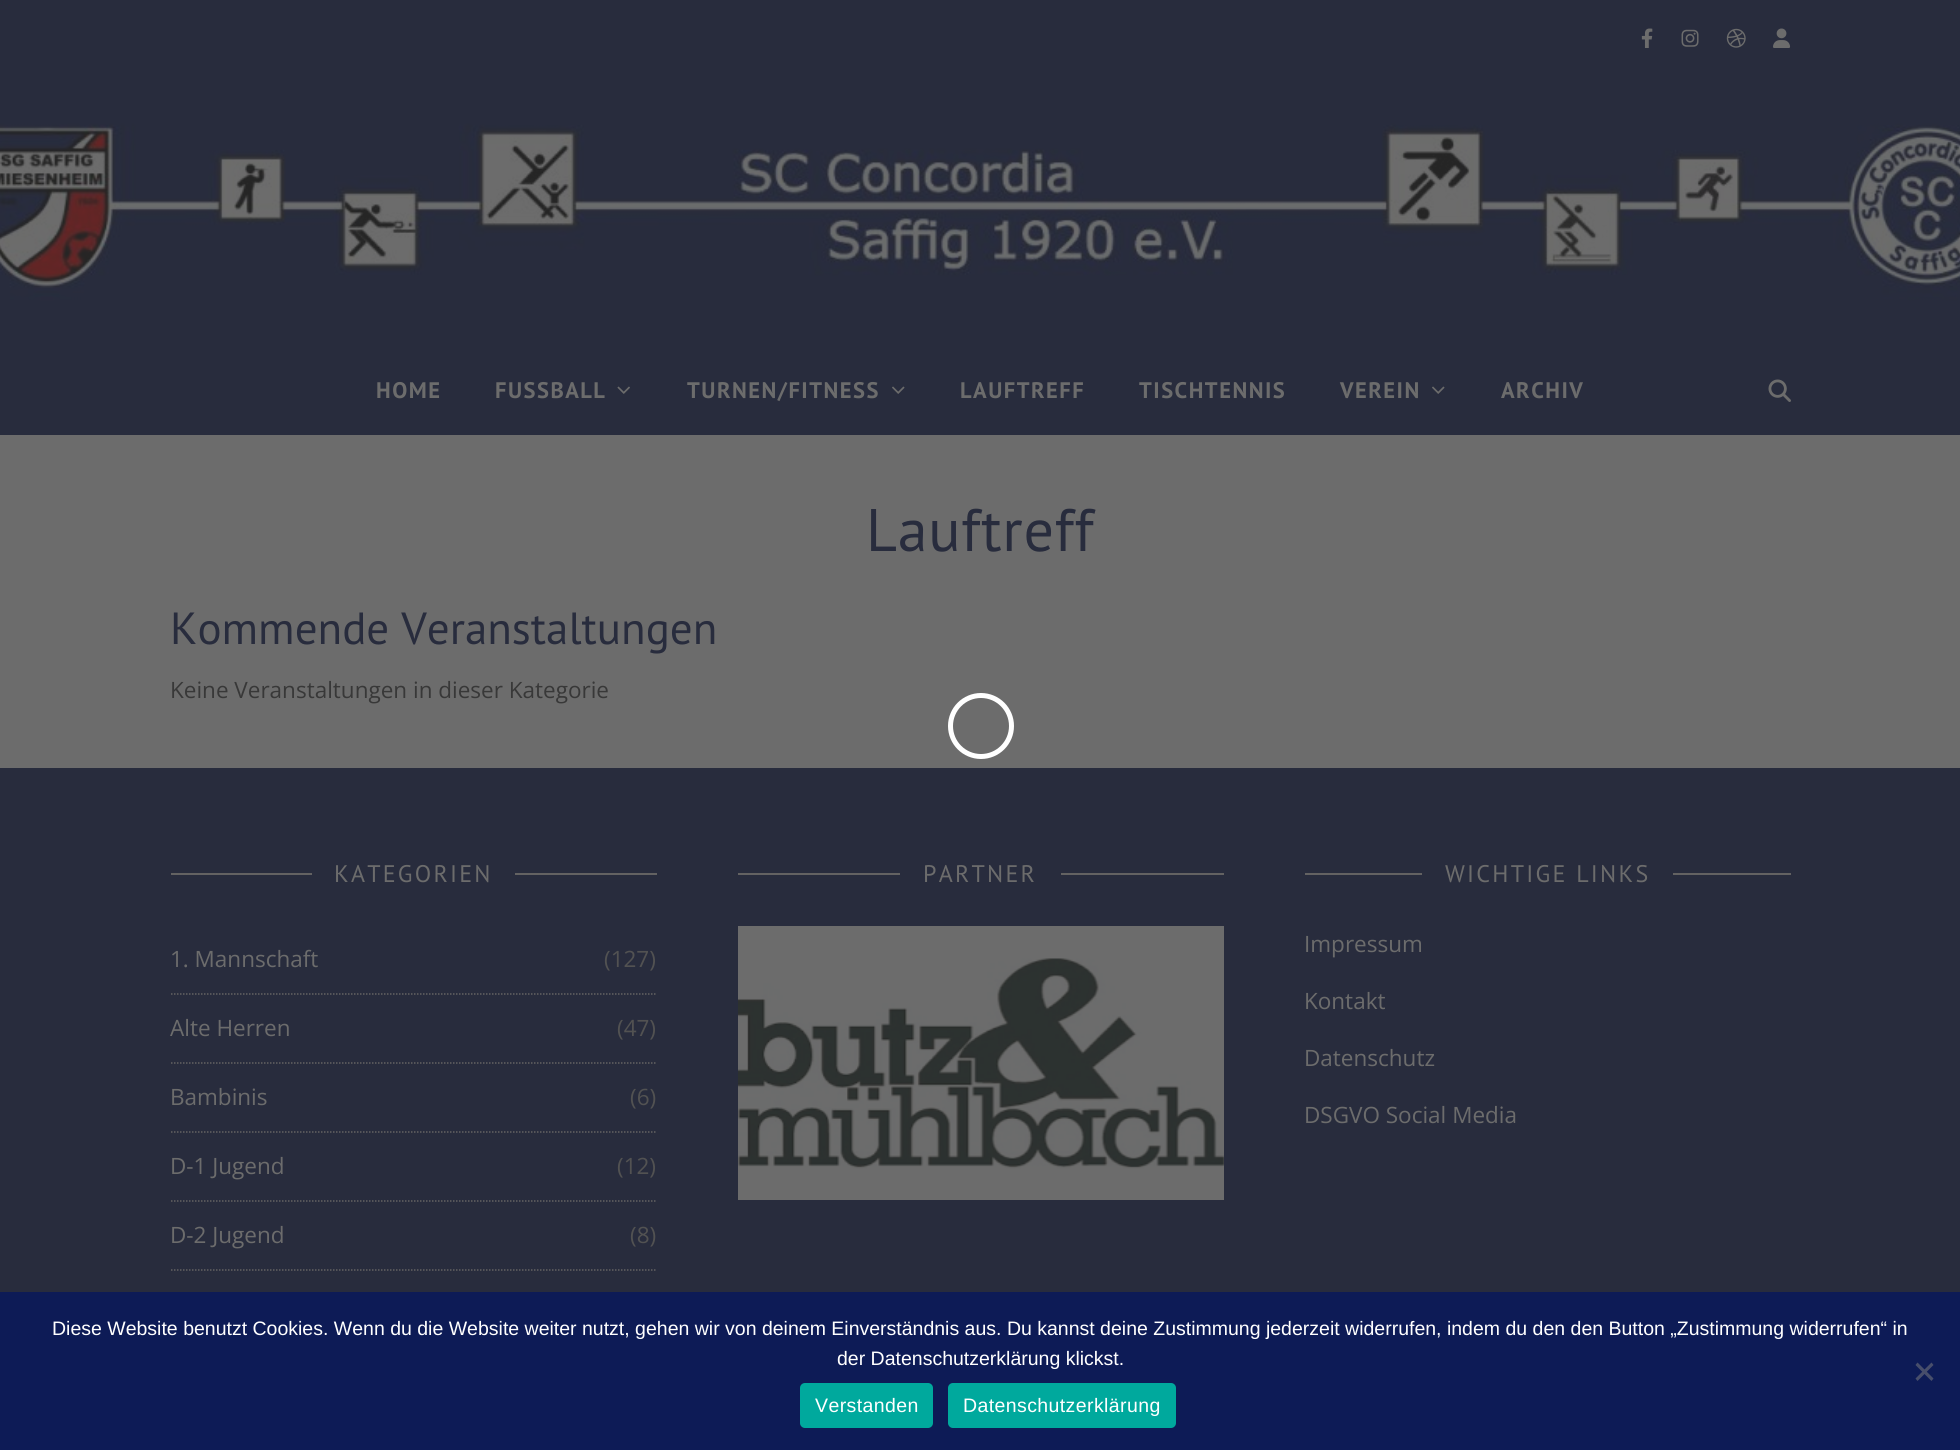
import math
import cairo


def write_spaced(ctx, x, y, s, letter, word):
	ctx.move_to(x, y)
	for ch in s:
		ctx.show_text(ch)
		ctx.rel_move_to(letter + word * (ch == ' '), 0)

def round_path(ctx, x, y, w, h, r):
	ctx.new_sub_path()
	for i, (u, v) in enumerate([(x + w - r, y + h - r), (x + r, y + h - r), (x + r, y + r), (x + w - r, y + r)]):
		ctx.arc(u, v, r, i * math.pi / 2, (i + 1) * math.pi / 2)
	ctx.close_path()

def paste(ctx, path, x, y, w, h):
	ctx.save()
	ctx.set_source_surface(cairo.ImageSurface.create_from_png(path), x, y)
	ctx.rectangle(x, y, w, h)
	ctx.fill()
	ctx.restore()

def draw(ctx):
	ctx.set_source_rgb(0.424, 0.424, 0.424)
	ctx.paint()
	ctx.set_source_rgb(0.157, 0.173, 0.239)
	ctx.rectangle(0, 0, 1960, 75)
	ctx.fill()
	paste(ctx, 'media/1.png', 1641, 28, 12, 20)
	paste(ctx, 'media/2.png', 1681, 29, 18, 18)
	paste(ctx, 'media/3.png', 1726, 28, 20, 20)
	paste(ctx, 'media/4.png', 1773, 28, 18, 20)
	paste(ctx, 'media/5.png', 0, 75, 1960, 270)
	ctx.rectangle(0, 345, 1960, 90)
	ctx.fill()
	ctx.select_font_face('PT Sans', cairo.FONT_SLANT_NORMAL, cairo.FONT_WEIGHT_BOLD)
	ctx.set_font_size(22.5)
	ctx.set_source_rgb(0.424, 0.424, 0.424)
	write_spaced(ctx, 376, 398, 'HOME', 1.5, 0)
	write_spaced(ctx, 495, 398, 'FUSSBALL', 1.5, 0)
	paste(ctx, 'media/6.png', 617, 386, 13, 8)
	write_spaced(ctx, 687, 398, 'TURNEN/FITNESS', 1.5, 0)
	paste(ctx, 'media/7.png', 892, 386, 13, 8)
	for x, y, s in [
		(960, 398, 'LAUFTREFF'),
		(1139, 398, 'TISCHTENNIS'),
		(1340, 398, 'VEREIN'),
	]:
		write_spaced(ctx, x, y, s, 1.5, 0)
	paste(ctx, 'media/7.png', 1432, 386, 13, 8)
	write_spaced(ctx, 1501, 398, 'ARCHIV', 1.5, 0)
	paste(ctx, 'media/8.png', 1768, 379, 23, 23)
	ctx.select_font_face('PT Sans')
	ctx.set_font_size(60)
	ctx.set_source_rgb(0.157, 0.173, 0.239)
	write_spaced(ctx, 866, 551, 'Lauftreff', 0.75, 0)
	ctx.set_font_size(45)
	ctx.move_to(170, 644)
	ctx.show_text('Kommende Veranstaltungen')
	ctx.select_font_face('Open Sans')
	ctx.set_font_size(22.5)
	ctx.set_source_rgb(0.22, 0.22, 0.22)
	ctx.move_to(170, 698)
	ctx.show_text('Keine Veranstaltungen in dieser Kategorie')
	ctx.set_source_rgb(0.157, 0.173, 0.239)
	ctx.rectangle(0, 768, 1960, 524)
	ctx.fill()
	ctx.set_source_rgb(0.388, 0.384, 0.384)
	ctx.rectangle(171, 873, 141, 2)
	ctx.fill()
	ctx.select_font_face('PT Sans')
	ctx.set_font_size(24)
	ctx.set_source_rgb(0.424, 0.424, 0.424)
	write_spaced(ctx, 334, 882, 'KATEGORIEN', 2.25, 0)
	ctx.set_source_rgb(0.388, 0.384, 0.384)
	ctx.rectangle(515, 873, 142, 2)
	ctx.fill()
	ctx.new_path()
	ctx.move_to(171, 994)
	ctx.line_to(657, 994)
	ctx.set_line_width(1.5)
	ctx.set_dash([1.5, 1.5])
	ctx.stroke()
	ctx.select_font_face('Open Sans')
	ctx.set_font_size(22.5)
	ctx.set_source_rgb(0.424, 0.424, 0.424)
	ctx.move_to(170, 967)
	ctx.show_text('1. Mannschaft')
	ctx.set_source_rgb(0.322, 0.322, 0.322)
	ctx.move_to(604, 967)
	ctx.show_text('(127)')
	ctx.new_path()
	ctx.move_to(171, 1063)
	ctx.line_to(657, 1063)
	ctx.set_source_rgb(0.388, 0.384, 0.384)
	ctx.stroke()
	ctx.set_source_rgb(0.424, 0.424, 0.424)
	ctx.move_to(170, 1036)
	ctx.show_text('Alte Herren')
	ctx.set_source_rgb(0.322, 0.322, 0.322)
	ctx.move_to(617, 1036)
	ctx.show_text('(47)')
	ctx.new_path()
	ctx.move_to(171, 1132)
	ctx.line_to(657, 1132)
	ctx.set_source_rgb(0.388, 0.384, 0.384)
	ctx.stroke()
	ctx.set_source_rgb(0.424, 0.424, 0.424)
	ctx.move_to(170, 1105)
	ctx.show_text('Bambinis')
	ctx.set_source_rgb(0.322, 0.322, 0.322)
	ctx.move_to(630, 1105)
	ctx.show_text('(6)')
	ctx.new_path()
	ctx.move_to(171, 1201)
	ctx.line_to(657, 1201)
	ctx.set_source_rgb(0.388, 0.384, 0.384)
	ctx.stroke()
	ctx.set_source_rgb(0.424, 0.424, 0.424)
	ctx.move_to(170, 1174)
	ctx.show_text('D-1 Jugend')
	ctx.set_source_rgb(0.322, 0.322, 0.322)
	ctx.move_to(617, 1174)
	ctx.show_text('(12)')
	ctx.new_path()
	ctx.move_to(171, 1270)
	ctx.line_to(657, 1270)
	ctx.set_source_rgb(0.388, 0.384, 0.384)
	ctx.stroke()
	ctx.set_source_rgb(0.424, 0.424, 0.424)
	ctx.move_to(170, 1243)
	ctx.show_text('D-2 Jugend')
	ctx.set_source_rgb(0.322, 0.322, 0.322)
	ctx.move_to(630, 1243)
	ctx.show_text('(8)')
	ctx.set_source_rgb(0.388, 0.384, 0.384)
	ctx.rectangle(738, 873, 162, 2)
	ctx.fill()
	ctx.select_font_face('PT Sans')
	ctx.set_font_size(24)
	ctx.set_source_rgb(0.424, 0.424, 0.424)
	write_spaced(ctx, 923, 882, 'PARTNER', 2.25, 0)
	ctx.set_source_rgb(0.388, 0.384, 0.384)
	ctx.rectangle(1061, 873, 163, 2)
	ctx.fill()
	ctx.set_source_rgb(0.424, 0.424, 0.424)
	ctx.rectangle(738, 926, 486, 274)
	ctx.fill()
	paste(ctx, 'media/9.png', 738, 958, 486, 211)
	ctx.set_source_rgb(0.388, 0.384, 0.384)
	ctx.rectangle(1305, 873, 117, 2)
	ctx.fill()
	ctx.set_source_rgb(0.424, 0.424, 0.424)
	write_spaced(ctx, 1445, 882, 'WICHTIGE LINKS', 2.25, 0)
	ctx.set_source_rgb(0.388, 0.384, 0.384)
	ctx.rectangle(1673, 873, 118, 2)
	ctx.fill()
	ctx.select_font_face('Open Sans')
	ctx.set_font_size(22.5)
	ctx.set_source_rgb(0.424, 0.424, 0.424)
	for x, y, s in [
		(1304, 952, 'Impressum'),
		(1304, 1009, 'Kontakt'),
		(1304, 1066, 'Datenschutz'),
		(1304, 1123, 'DSGVO Social Media'),
	]:
		ctx.move_to(x, y)
		ctx.show_text(s)
	ctx.new_path()
	ctx.arc(981, 726, 30.5, 0, 2 * math.pi)
	ctx.set_source_rgb(1, 1, 1)
	ctx.set_line_width(5)
	ctx.set_dash([])
	ctx.stroke()
	ctx.set_source_rgb(0.051, 0.106, 0.337)
	ctx.rectangle(0, 1292, 1960, 158)
	ctx.fill()
	ctx.select_font_face('Liberation Sans')
	ctx.set_font_size(19.5)
	ctx.set_source_rgb(1, 1, 1)
	ctx.move_to(52, 1335)
	ctx.show_text('Diese Website benutzt Cookies. Wenn du die Website weiter nutzt, gehen wir von deinem Einverständnis aus. Du kannst deine Zustimmung jederzeit widerrufen, indem du den den Button „Zustimmung widerrufen“ in')
	ctx.move_to(837, 1365)
	ctx.show_text('der Datenschutzerklärung klickst.')
	ctx.set_source_rgb(0.278, 0.306, 0.42)
	ctx.new_path()
	ctx.move_to(1931.5, 1362.5)
	ctx.line_to(1933.5, 1365)
	ctx.line_to(1917.5, 1381)
	ctx.line_to(1915.5, 1378.5)
	ctx.close_path()
	ctx.fill()
	ctx.new_path()
	ctx.move_to(1915.5, 1365)
	ctx.line_to(1917.5, 1362.5)
	ctx.line_to(1933.5, 1378.5)
	ctx.line_to(1931.5, 1381)
	ctx.close_path()
	ctx.fill()
	ctx.set_source_rgb(0, 0.663, 0.616)
	round_path(ctx, 800, 1383, 133, 45, 5)
	ctx.fill()
	ctx.set_source_rgb(1, 1, 1)
	write_spaced(ctx, 815, 1412, 'Verstanden', 0.4, 0)
	ctx.set_source_rgb(0, 0.663, 0.616)
	round_path(ctx, 948, 1383, 228, 45, 5)
	ctx.fill()
	ctx.set_source_rgb(1, 1, 1)
	write_spaced(ctx, 963, 1412, 'Datenschutzerklärung', 0.4, 0)


surface = cairo.ImageSurface(cairo.FORMAT_RGB24, 1960, 1450)
ctx = cairo.Context(surface)
options = cairo.FontOptions()
options.set_hint_metrics(cairo.HINT_METRICS_OFF)
options.set_hint_style(cairo.HINT_STYLE_NONE)
ctx.set_font_options(options)
ctx.set_miter_limit(4)
draw(ctx)
surface.write_to_png('image.png')
